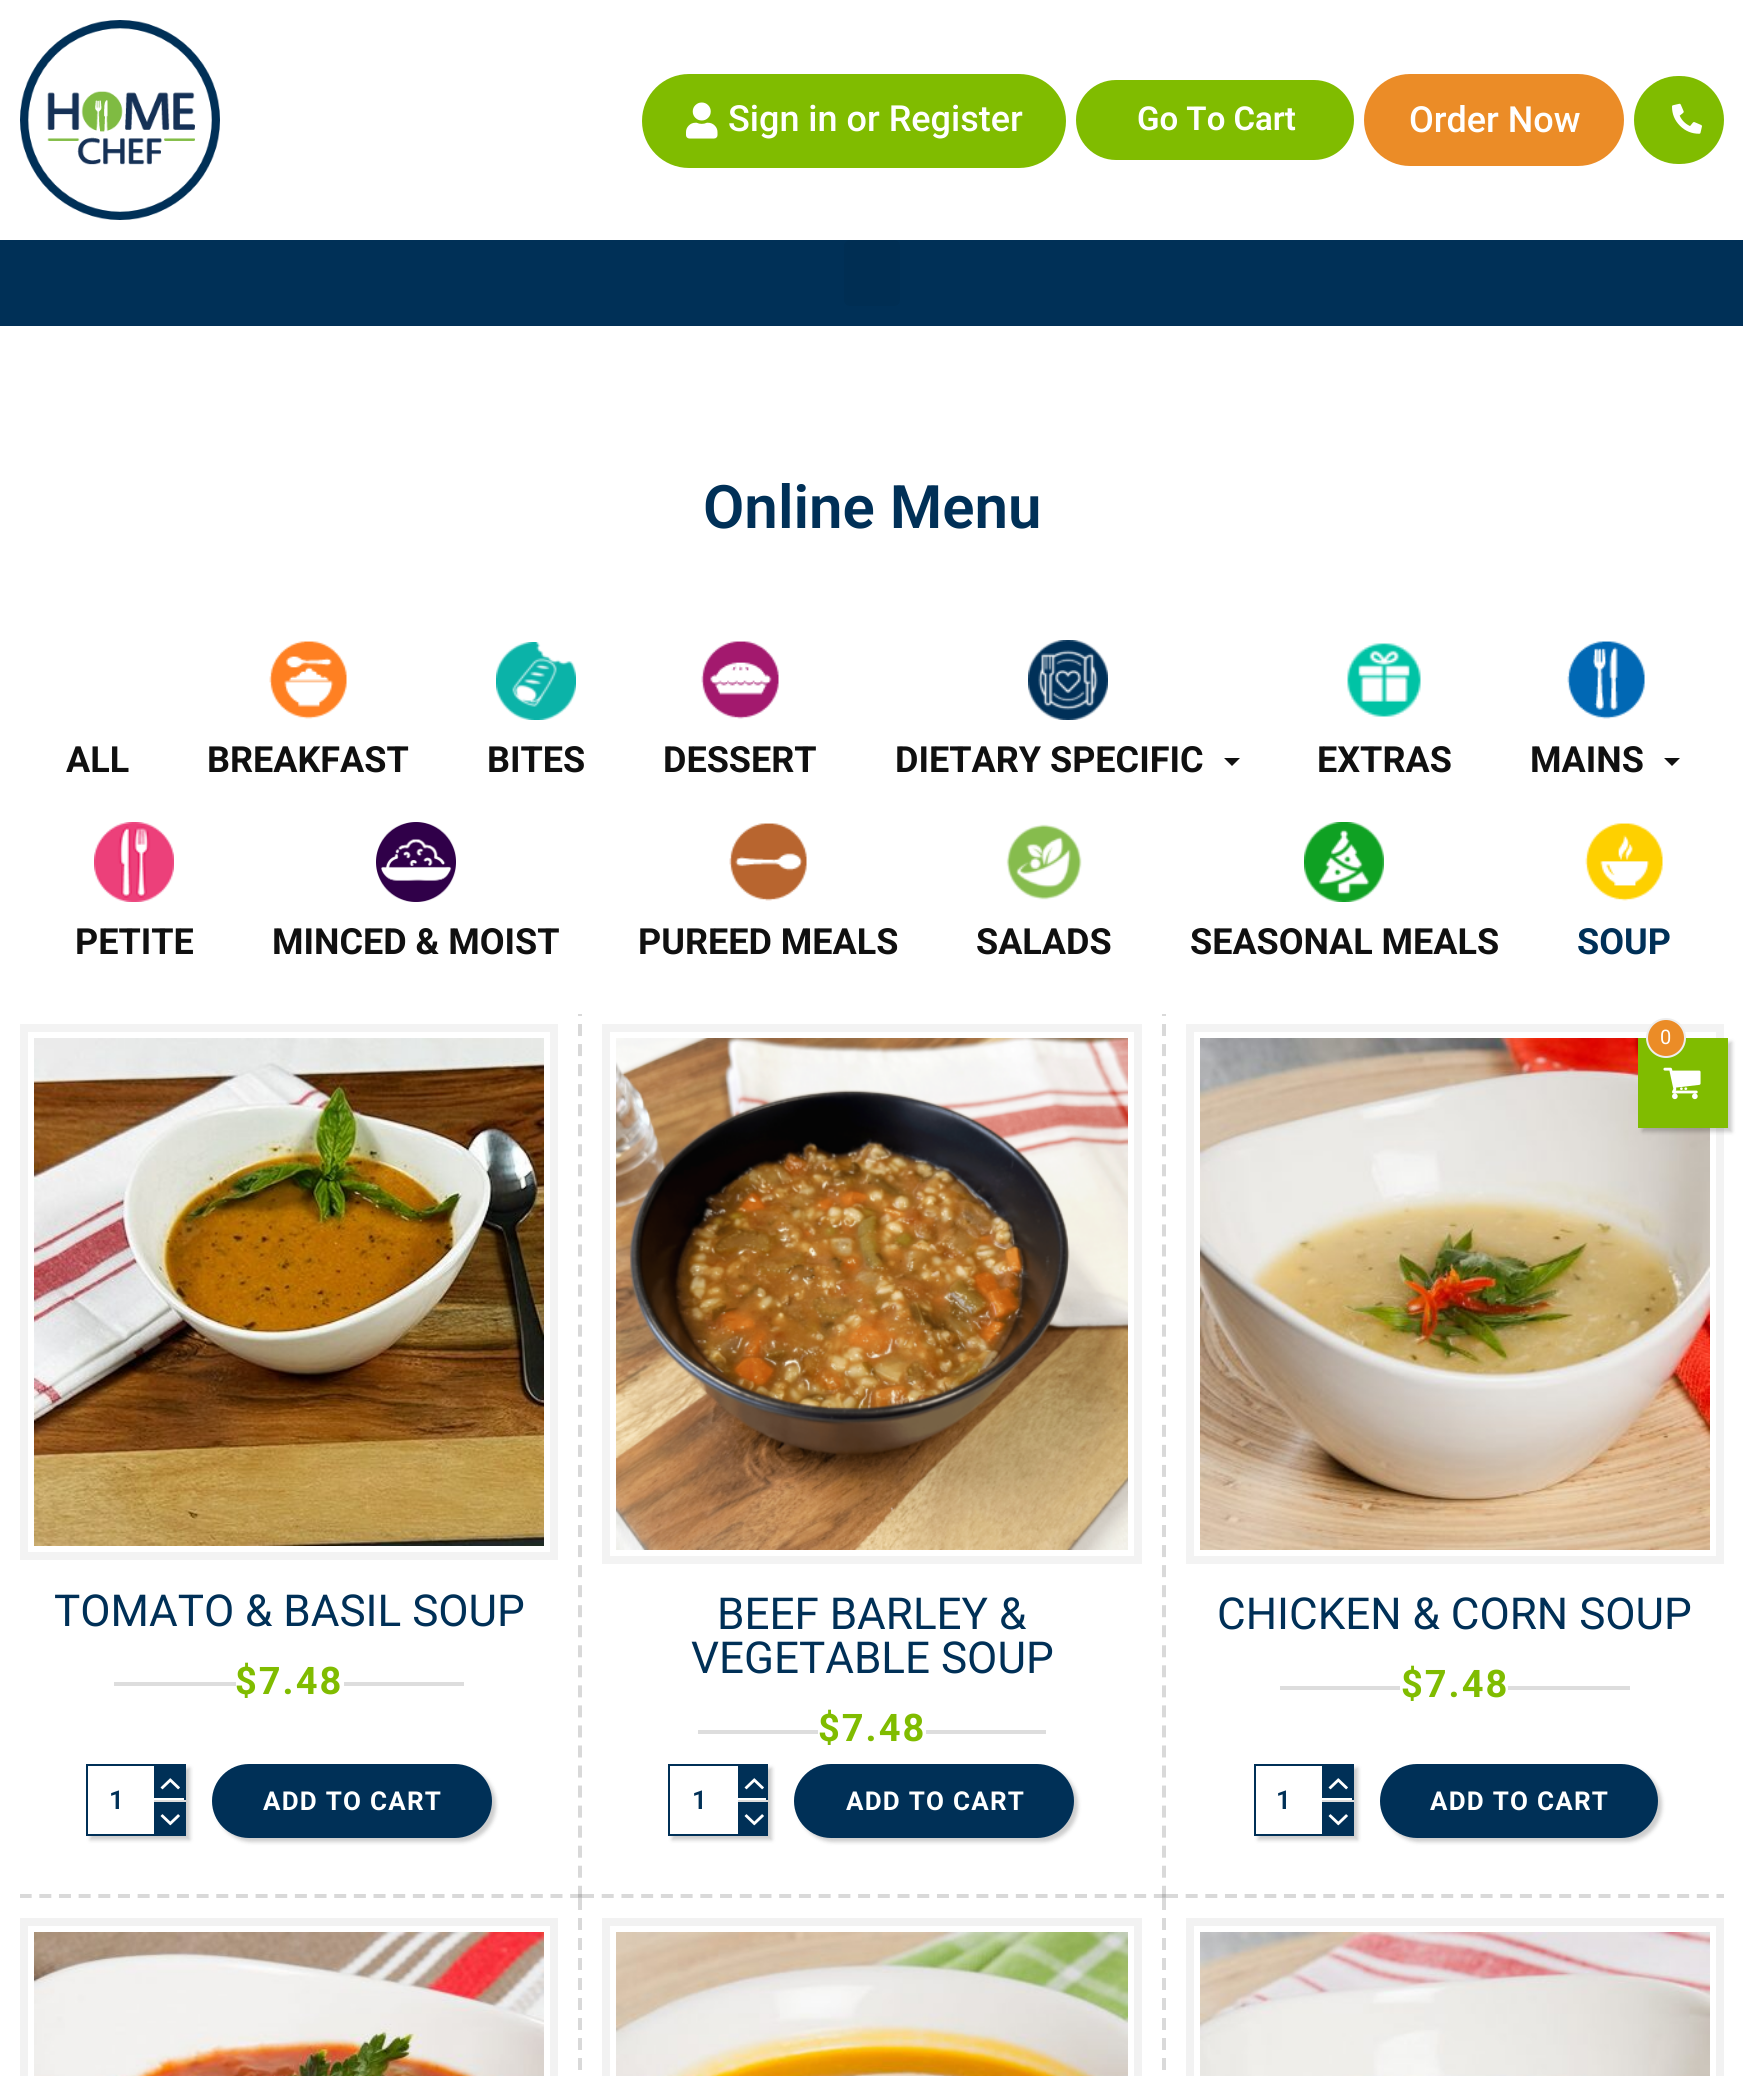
import math
import cairo


def write_spaced(ctx, x, y, s, letter, word):
	ctx.move_to(x, y)
	for ch in s:
		ctx.show_text(ch)
		ctx.rel_move_to(letter + word * (ch == ' '), 0)

def round_path(ctx, x, y, w, h, r):
	ctx.new_sub_path()
	for i, (u, v) in enumerate([(x + w - r, y + h - r), (x + r, y + h - r), (x + r, y + r), (x + w - r, y + r)]):
		ctx.arc(u, v, r, i * math.pi / 2, (i + 1) * math.pi / 2)
	ctx.close_path()

def blur_box(ctx, x, y, w, h, r, blur, alpha):
	ctx.push_group_with_content(cairo.CONTENT_ALPHA)
	ctx.set_operator(cairo.OPERATOR_SOURCE)
	for i in range(15, -16, -2):
		e = blur * i / 6
		if min(w, h) + 2 * e > 0:
			ctx.set_source_rgba(0, 0, 0, alpha * math.erfc((i - 1) / 8.5) / 2)
			round_path(ctx, x - e, y - e, w + 2 * e, h + 2 * e, max(0, min(r + e + blur * .6, min(w, h) / 2 + e)))
			ctx.fill()
	ctx.mask(ctx.pop_group())

def paste(ctx, path, x, y, w, h):
	ctx.save()
	ctx.set_source_surface(cairo.ImageSurface.create_from_png(path), x, y)
	ctx.rectangle(x, y, w, h)
	ctx.fill()
	ctx.restore()

def draw(ctx):
	ctx.set_source_rgb(1, 1, 1)
	ctx.paint()
	paste(ctx, 'media/1.png', 20, 20, 200, 200)
	ctx.set_source_rgb(0.502, 0.737, 0)
	round_path(ctx, 644, 76, 420, 90, 45)
	ctx.fill_preserve()
	ctx.set_line_width(4)
	ctx.stroke()
	paste(ctx, 'media/2.png', 686, 102, 32, 37)
	ctx.select_font_face('Roboto Medium')
	ctx.set_font_size(36)
	ctx.set_source_rgb(1, 1, 1)
	ctx.move_to(728, 131)
	ctx.show_text('Sign in or Register')
	ctx.set_source_rgb(0.502, 0.737, 0)
	round_path(ctx, 1076, 80, 278, 80, 40)
	ctx.fill()
	ctx.select_font_face('Roboto SemiBold')
	ctx.set_font_size(33)
	ctx.set_source_rgb(1, 1, 1)
	ctx.move_to(1137, 130)
	ctx.show_text('Go To Cart')
	ctx.set_source_rgb(0.918, 0.549, 0.153)
	round_path(ctx, 1366, 76, 256, 88, 44)
	ctx.fill_preserve()
	ctx.stroke()
	ctx.select_font_face('Roboto Medium')
	ctx.set_font_size(36)
	ctx.set_source_rgb(1, 1, 1)
	ctx.move_to(1409, 132)
	ctx.show_text('Order Now')
	ctx.set_source_rgb(0.502, 0.737, 0)
	round_path(ctx, 1634, 76, 90, 88, 44)
	ctx.fill()
	paste(ctx, 'media/3.png', 1672, 103, 30, 31)
	ctx.set_source_rgb(0, 0.188, 0.341)
	ctx.rectangle(0, 240, 1743, 86)
	ctx.fill()
	ctx.set_source_rgb(0, 0.18, 0.325)
	round_path(ctx, 844, 240, 56, 66, 6)
	ctx.fill()
	ctx.select_font_face('Roboto SemiBold')
	ctx.set_font_size(60)
	ctx.set_source_rgb(0, 0.188, 0.341)
	ctx.move_to(703, 528)
	ctx.show_text('Online Menu')
	ctx.select_font_face('Roboto', cairo.FONT_SLANT_NORMAL, cairo.FONT_WEIGHT_BOLD)
	ctx.set_font_size(36)
	ctx.set_source_rgb(0.063, 0.063, 0.063)
	ctx.move_to(66, 772)
	ctx.show_text('ALL')
	paste(ctx, 'media/4.png', 269, 641, 78, 78)
	ctx.move_to(207, 772)
	ctx.show_text('BREAKFAST')
	paste(ctx, 'media/5.png', 496, 642, 80, 78)
	ctx.move_to(487, 772)
	ctx.show_text('BITES')
	paste(ctx, 'media/6.png', 701, 641, 78, 78)
	ctx.move_to(663, 772)
	ctx.show_text('DESSERT')
	paste(ctx, 'media/7.png', 1028, 640, 80, 80)
	ctx.move_to(895, 772)
	ctx.show_text('DIETARY SPECIFIC')
	ctx.new_path()
	ctx.move_to(1224, 758)
	ctx.line_to(1240, 758)
	ctx.line_to(1232, 766)
	ctx.close_path()
	ctx.fill()
	paste(ctx, 'media/8.png', 1347, 643, 74, 74)
	ctx.move_to(1317, 772)
	ctx.show_text('EXTRAS')
	paste(ctx, 'media/9.png', 1567, 641, 78, 78)
	ctx.move_to(1530, 772)
	ctx.show_text('MAINS')
	ctx.new_path()
	ctx.move_to(1664, 758)
	ctx.line_to(1680, 758)
	ctx.line_to(1672, 766)
	ctx.close_path()
	ctx.fill()
	paste(ctx, 'media/10.png', 94, 822, 80, 80)
	ctx.move_to(75, 954)
	ctx.show_text('PETITE')
	paste(ctx, 'media/11.png', 376, 822, 80, 80)
	ctx.move_to(272, 954)
	ctx.show_text('MINCED & MOIST')
	paste(ctx, 'media/12.png', 729, 823, 78, 78)
	ctx.move_to(638, 954)
	ctx.show_text('PUREED MEALS')
	paste(ctx, 'media/13.png', 1006, 824, 76, 76)
	ctx.move_to(976, 954)
	ctx.show_text('SALADS')
	paste(ctx, 'media/14.png', 1304, 822, 80, 80)
	ctx.move_to(1190, 954)
	ctx.show_text('SEASONAL MEALS')
	paste(ctx, 'media/15.png', 1585, 823, 78, 78)
	ctx.set_source_rgb(0, 0.188, 0.341)
	ctx.move_to(1577, 954)
	ctx.show_text('SOUP')
	ctx.save()
	ctx.rectangle(20, 1014, 1704, 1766)
	ctx.clip()
	ctx.new_path()
	ctx.move_to(580, 1004)
	ctx.line_to(580, 1898)
	ctx.set_source_rgb(0.851, 0.851, 0.851)
	ctx.set_dash([12, 8.04])
	ctx.stroke()
	ctx.new_path()
	ctx.move_to(0, 1896)
	ctx.line_to(582, 1896)
	ctx.set_source_rgba(0, 0, 0, 0.15)
	ctx.set_dash([12, 7.66])
	ctx.stroke()
	ctx.restore()
	ctx.set_source_rgb(0.953, 0.953, 0.953)
	ctx.rectangle(20, 1024, 538, 536)
	ctx.fill()
	ctx.rectangle(31, 1035, 516, 514)
	ctx.set_source_rgb(1, 1, 1)
	ctx.set_line_width(6)
	ctx.stroke()
	paste(ctx, 'media/16.png', 34, 1038, 510, 508)
	ctx.select_font_face('Roboto')
	ctx.set_font_size(44)
	ctx.set_source_rgb(0, 0.188, 0.341)
	ctx.move_to(54, 1626)
	ctx.show_text('TOMATO & BASIL SOUP')
	ctx.set_source_rgb(0.867, 0.867, 0.867)
	ctx.rectangle(114, 1682, 350, 4)
	ctx.fill()
	ctx.set_source_rgb(1, 1, 1)
	ctx.rectangle(236, 1682, 108, 4)
	ctx.fill()
	ctx.select_font_face('Roboto', cairo.FONT_SLANT_NORMAL, cairo.FONT_WEIGHT_BOLD)
	ctx.set_font_size(38)
	ctx.set_source_rgb(0.502, 0.737, 0)
	write_spaced(ctx, 235, 1694, '$7.48', 2, 0)
	ctx.save()
	ctx.set_fill_rule(cairo.FILL_RULE_EVEN_ODD)
	ctx.new_path()
	ctx.move_to(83, 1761)
	ctx.line_to(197, 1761)
	ctx.line_to(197, 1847)
	ctx.line_to(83, 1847)
	ctx.close_path()
	ctx.move_to(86, 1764)
	ctx.line_to(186, 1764)
	ctx.line_to(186, 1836)
	ctx.line_to(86, 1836)
	ctx.close_path()
	ctx.clip()
	ctx.set_source_rgb(0, 0, 0)
	blur_box(ctx, 90, 1768, 100, 72, 0, 2, 0.2)
	ctx.restore()
	ctx.rectangle(87, 1765, 98, 70)
	ctx.set_source_rgb(0, 0.188, 0.341)
	ctx.set_line_width(2)
	ctx.stroke()
	ctx.select_font_face('Roboto SemiBold')
	ctx.set_font_size(26)
	ctx.move_to(109, 1809)
	ctx.show_text('1')
	ctx.rectangle(154, 1766, 30, 32)
	ctx.fill()
	paste(ctx, 'media/17.png', 160, 1778, 20, 12)
	ctx.rectangle(154, 1802, 30, 32)
	ctx.fill()
	ctx.set_source_rgb(0.867, 0.867, 0.867)
	ctx.rectangle(154, 1800, 32, 2)
	ctx.fill()
	paste(ctx, 'media/18.png', 160, 1814, 20, 12)
	ctx.set_source_rgb(0, 0, 0)
	blur_box(ctx, 216, 1768, 280, 74, 37, 2, 0.2)
	ctx.set_source_rgb(0, 0.188, 0.341)
	round_path(ctx, 212, 1764, 280, 74, 37)
	ctx.fill()
	ctx.select_font_face('Roboto', cairo.FONT_SLANT_NORMAL, cairo.FONT_WEIGHT_BOLD)
	ctx.set_source_rgb(1, 1, 1)
	write_spaced(ctx, 263, 1810, 'ADD TO CART', 1.25, 0)
	ctx.save()
	ctx.rectangle(20, 1014, 1704, 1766)
	ctx.clip()
	ctx.new_path()
	ctx.move_to(1164, 1004)
	ctx.line_to(1164, 1898)
	ctx.set_source_rgb(0.851, 0.851, 0.851)
	ctx.set_line_width(4)
	ctx.set_dash([12, 8.04])
	ctx.stroke()
	ctx.restore()
	ctx.new_path()
	ctx.move_to(582, 1896)
	ctx.line_to(1166, 1896)
	ctx.set_source_rgba(0, 0, 0, 0.15)
	ctx.set_line_width(4)
	ctx.set_dash([12, 7.72])
	ctx.stroke()
	ctx.set_source_rgb(0.953, 0.953, 0.953)
	ctx.rectangle(602, 1024, 540, 540)
	ctx.fill()
	ctx.rectangle(613, 1035, 518, 518)
	ctx.set_source_rgb(1, 1, 1)
	ctx.set_line_width(6)
	ctx.set_dash([])
	ctx.stroke()
	paste(ctx, 'media/19.png', 616, 1038, 512, 512)
	ctx.select_font_face('Roboto')
	ctx.set_font_size(44)
	ctx.set_source_rgb(0, 0.188, 0.341)
	ctx.move_to(717, 1629)
	ctx.show_text('BEEF BARLEY &')
	ctx.move_to(691, 1673)
	ctx.show_text('VEGETABLE SOUP')
	ctx.set_source_rgb(0.867, 0.867, 0.867)
	ctx.rectangle(698, 1730, 348, 4)
	ctx.fill()
	ctx.set_source_rgb(1, 1, 1)
	ctx.rectangle(818, 1730, 108, 4)
	ctx.fill()
	ctx.select_font_face('Roboto', cairo.FONT_SLANT_NORMAL, cairo.FONT_WEIGHT_BOLD)
	ctx.set_font_size(38)
	ctx.set_source_rgb(0.502, 0.737, 0)
	write_spaced(ctx, 818, 1741, '$7.48', 2, 0)
	ctx.save()
	ctx.set_fill_rule(cairo.FILL_RULE_EVEN_ODD)
	ctx.new_path()
	ctx.move_to(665, 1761)
	ctx.line_to(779, 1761)
	ctx.line_to(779, 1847)
	ctx.line_to(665, 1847)
	ctx.close_path()
	ctx.move_to(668, 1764)
	ctx.line_to(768, 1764)
	ctx.line_to(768, 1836)
	ctx.line_to(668, 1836)
	ctx.close_path()
	ctx.clip()
	ctx.set_source_rgb(0, 0, 0)
	blur_box(ctx, 672, 1768, 100, 72, 0, 2, 0.2)
	ctx.restore()
	ctx.rectangle(669, 1765, 98, 70)
	ctx.set_source_rgb(0, 0.188, 0.341)
	ctx.set_line_width(2)
	ctx.stroke()
	ctx.select_font_face('Roboto SemiBold')
	ctx.set_font_size(26)
	ctx.move_to(692, 1809)
	ctx.show_text('1')
	ctx.rectangle(738, 1766, 28, 32)
	ctx.fill()
	paste(ctx, 'media/17.png', 744, 1778, 20, 12)
	ctx.rectangle(738, 1802, 28, 32)
	ctx.fill()
	ctx.set_source_rgb(0.867, 0.867, 0.867)
	ctx.rectangle(738, 1800, 30, 2)
	ctx.fill()
	paste(ctx, 'media/18.png', 744, 1814, 20, 12)
	ctx.set_source_rgb(0, 0, 0)
	blur_box(ctx, 798, 1768, 280, 74, 37, 2, 0.2)
	ctx.set_source_rgb(0, 0.188, 0.341)
	round_path(ctx, 794, 1764, 280, 74, 37)
	ctx.fill()
	ctx.select_font_face('Roboto', cairo.FONT_SLANT_NORMAL, cairo.FONT_WEIGHT_BOLD)
	ctx.set_source_rgb(1, 1, 1)
	write_spaced(ctx, 846, 1810, 'ADD TO CART', 1.25, 0)
	ctx.save()
	ctx.rectangle(20, 1014, 1704, 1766)
	ctx.clip()
	ctx.new_path()
	ctx.move_to(1166, 1896)
	ctx.line_to(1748, 1896)
	ctx.set_source_rgb(0.851, 0.851, 0.851)
	ctx.set_line_width(4)
	ctx.set_dash([12, 7.66])
	ctx.stroke()
	ctx.restore()
	ctx.set_source_rgb(0.953, 0.953, 0.953)
	ctx.rectangle(1186, 1024, 538, 540)
	ctx.fill()
	ctx.rectangle(1197, 1035, 516, 518)
	ctx.set_source_rgb(1, 1, 1)
	ctx.set_line_width(6)
	ctx.stroke()
	paste(ctx, 'media/20.png', 1200, 1038, 510, 512)
	ctx.select_font_face('Roboto')
	ctx.set_font_size(44)
	ctx.set_source_rgb(0, 0.188, 0.341)
	ctx.move_to(1217, 1629)
	ctx.show_text('CHICKEN & CORN SOUP')
	ctx.set_source_rgb(0.867, 0.867, 0.867)
	ctx.rectangle(1280, 1686, 350, 4)
	ctx.fill()
	ctx.set_source_rgb(1, 1, 1)
	ctx.rectangle(1400, 1686, 108, 4)
	ctx.fill()
	ctx.select_font_face('Roboto', cairo.FONT_SLANT_NORMAL, cairo.FONT_WEIGHT_BOLD)
	ctx.set_font_size(38)
	ctx.set_source_rgb(0.502, 0.737, 0)
	write_spaced(ctx, 1401, 1697, '$7.48', 2, 0)
	ctx.save()
	ctx.set_fill_rule(cairo.FILL_RULE_EVEN_ODD)
	ctx.new_path()
	ctx.move_to(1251, 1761)
	ctx.line_to(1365, 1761)
	ctx.line_to(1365, 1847)
	ctx.line_to(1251, 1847)
	ctx.close_path()
	ctx.move_to(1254, 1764)
	ctx.line_to(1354, 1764)
	ctx.line_to(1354, 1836)
	ctx.line_to(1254, 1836)
	ctx.close_path()
	ctx.clip()
	ctx.set_source_rgb(0, 0, 0)
	blur_box(ctx, 1258, 1768, 100, 72, 0, 2, 0.2)
	ctx.restore()
	ctx.rectangle(1255, 1765, 98, 70)
	ctx.set_source_rgb(0, 0.188, 0.341)
	ctx.set_line_width(2)
	ctx.stroke()
	ctx.select_font_face('Roboto SemiBold')
	ctx.set_font_size(26)
	ctx.move_to(1276, 1809)
	ctx.show_text('1')
	ctx.rectangle(1322, 1766, 30, 32)
	ctx.fill()
	paste(ctx, 'media/17.png', 1328, 1778, 20, 12)
	ctx.rectangle(1322, 1802, 30, 32)
	ctx.fill()
	ctx.set_source_rgb(0.867, 0.867, 0.867)
	ctx.rectangle(1322, 1800, 32, 2)
	ctx.fill()
	paste(ctx, 'media/18.png', 1328, 1814, 20, 12)
	ctx.set_source_rgb(0, 0, 0)
	blur_box(ctx, 1384, 1768, 278, 74, 37, 2, 0.2)
	ctx.set_source_rgb(0, 0.188, 0.341)
	round_path(ctx, 1380, 1764, 278, 74, 37)
	ctx.fill()
	ctx.select_font_face('Roboto', cairo.FONT_SLANT_NORMAL, cairo.FONT_WEIGHT_BOLD)
	ctx.set_source_rgb(1, 1, 1)
	write_spaced(ctx, 1430, 1810, 'ADD TO CART', 1.25, 0)
	ctx.new_path()
	ctx.move_to(580, 1898)
	ctx.line_to(580, 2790)
	ctx.set_source_rgb(0.851, 0.851, 0.851)
	ctx.set_line_width(4)
	ctx.set_dash([12, 8])
	ctx.stroke()
	ctx.set_source_rgb(0.949, 0.949, 0.949)
	ctx.rectangle(20, 1918, 538, 158)
	ctx.fill()
	ctx.rectangle(31, 1929, 516, 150)
	ctx.set_source_rgb(1, 1, 1)
	ctx.set_line_width(6)
	ctx.set_dash([])
	ctx.stroke()
	paste(ctx, 'media/21.png', 34, 1932, 510, 144)
	ctx.new_path()
	ctx.move_to(1164, 1898)
	ctx.line_to(1164, 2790)
	ctx.set_source_rgb(0.851, 0.851, 0.851)
	ctx.set_line_width(4)
	ctx.set_dash([12, 8])
	ctx.stroke()
	ctx.set_source_rgb(0.949, 0.949, 0.949)
	ctx.rectangle(602, 1918, 540, 158)
	ctx.fill()
	ctx.rectangle(613, 1929, 518, 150)
	ctx.set_source_rgb(1, 1, 1)
	ctx.set_line_width(6)
	ctx.set_dash([])
	ctx.stroke()
	paste(ctx, 'media/22.png', 616, 1932, 512, 144)
	ctx.set_source_rgb(0.949, 0.949, 0.949)
	ctx.rectangle(1186, 1918, 538, 158)
	ctx.fill()
	ctx.rectangle(1197, 1929, 516, 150)
	ctx.set_source_rgb(1, 1, 1)
	ctx.stroke()
	paste(ctx, 'media/23.png', 1200, 1932, 510, 144)
	ctx.set_source_rgb(0, 0, 0)
	blur_box(ctx, 1642, 1042, 90, 90, 0, 2, 0.2)
	ctx.set_source_rgb(0.502, 0.737, 0)
	ctx.rectangle(1638, 1038, 90, 90)
	ctx.fill()
	ctx.set_source_rgb(0.918, 0.549, 0.153)
	ctx.arc(1666, 1038, 19, 0, 2 * math.pi)
	ctx.fill_preserve()
	ctx.set_source_rgb(0.933, 0.933, 0.933)
	ctx.set_line_width(2)
	ctx.stroke()
	ctx.select_font_face('Roboto')
	ctx.set_font_size(20)
	ctx.set_source_rgb(1, 1, 1)
	ctx.move_to(1660, 1044)
	ctx.show_text('0')
	paste(ctx, 'media/24.png', 1663, 1067, 38, 33)


surface = cairo.ImageSurface(cairo.FORMAT_RGB24, 1743, 2076)
ctx = cairo.Context(surface)
options = cairo.FontOptions()
options.set_hint_metrics(cairo.HINT_METRICS_OFF)
options.set_hint_style(cairo.HINT_STYLE_NONE)
ctx.set_font_options(options)
ctx.set_miter_limit(4)
draw(ctx)
surface.write_to_png('image.png')
